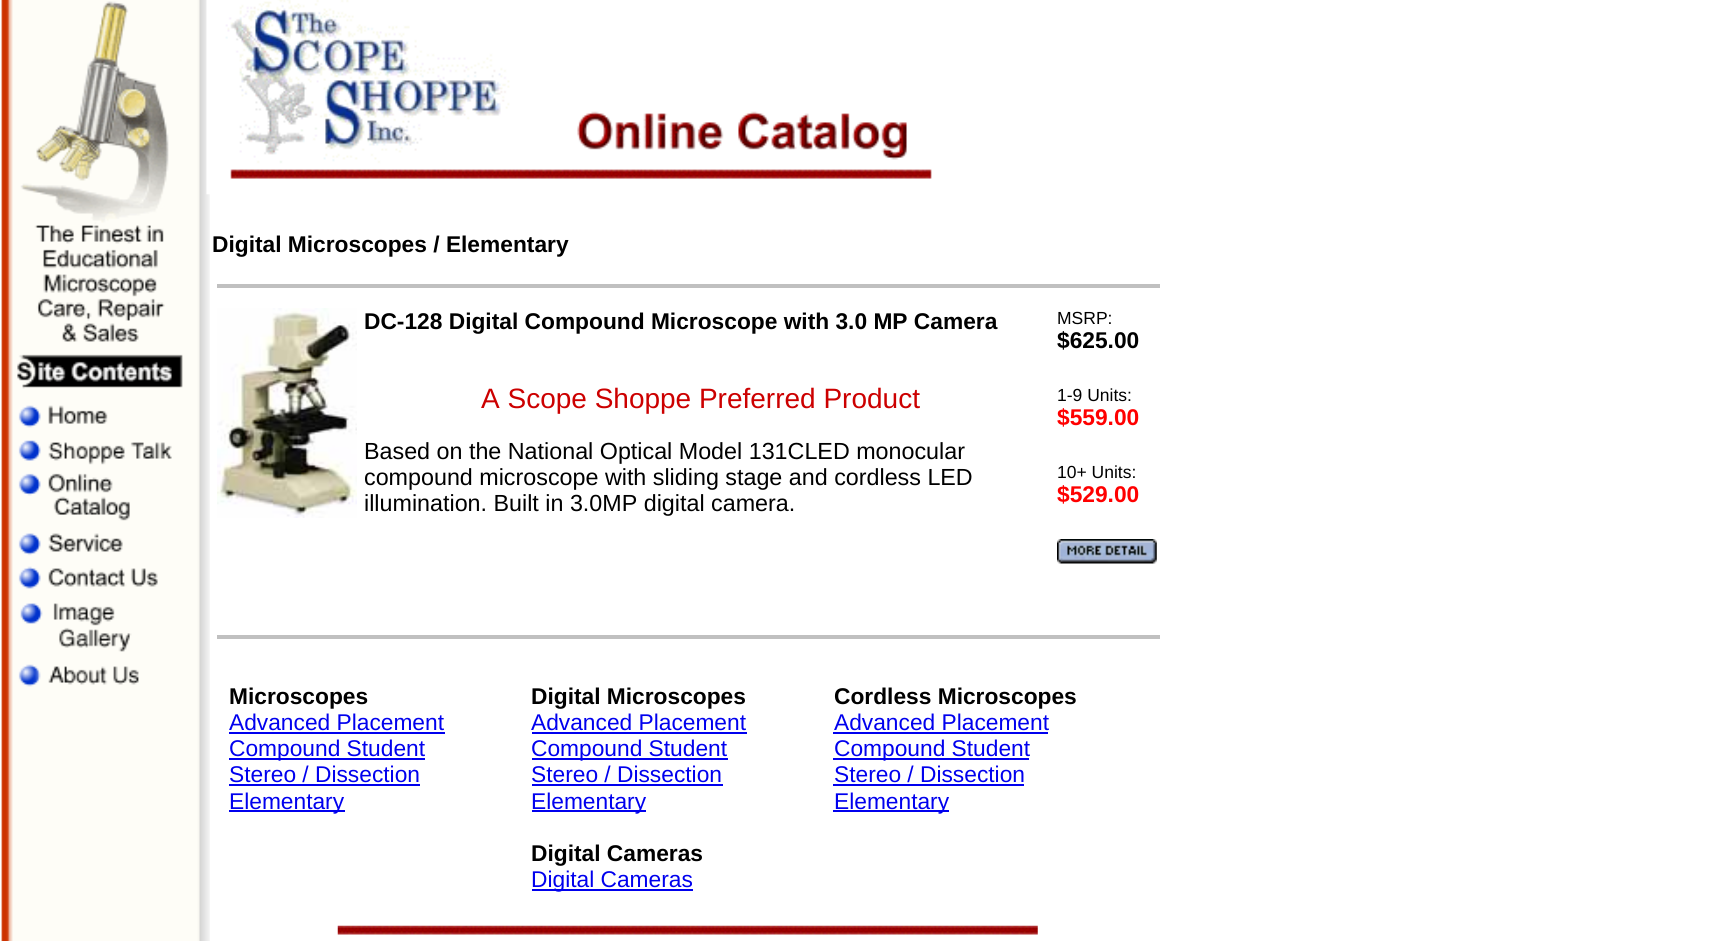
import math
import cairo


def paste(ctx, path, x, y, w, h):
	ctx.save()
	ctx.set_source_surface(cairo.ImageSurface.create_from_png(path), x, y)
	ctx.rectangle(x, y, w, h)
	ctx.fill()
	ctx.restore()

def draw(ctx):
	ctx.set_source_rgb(1, 1, 1)
	ctx.paint()
	paste(ctx, 'media/1.png', 1, 0, 209, 941)
	paste(ctx, 'media/2.png', 20, 1, 149, 341)
	paste(ctx, 'media/3.png', 17, 354, 166, 298)
	paste(ctx, 'media/4.png', 18, 664, 121, 23)
	paste(ctx, 'media/5.png', 206, 0, 726, 195)
	ctx.select_font_face('Liberation Sans', cairo.FONT_SLANT_NORMAL, cairo.FONT_WEIGHT_BOLD)
	ctx.set_font_size(22.75)
	ctx.set_source_rgb(0, 0, 0)
	ctx.move_to(212, 252)
	ctx.show_text('Digital Microscopes / Elementary')
	ctx.set_source_rgb(0.753, 0.753, 0.753)
	ctx.rectangle(217, 284, 943, 4)
	ctx.fill()
	paste(ctx, 'media/6.png', 217, 308, 140, 210)
	ctx.set_source_rgb(0, 0, 0)
	ctx.move_to(364, 329)
	ctx.show_text('DC-128 Digital Compound Microscope with 3.0 MP Camera')
	ctx.select_font_face('Liberation Sans')
	ctx.set_font_size(28)
	ctx.set_source_rgb(0.8, 0, 0)
	ctx.move_to(481, 408)
	ctx.show_text('A Scope Shoppe Preferred Product')
	ctx.set_font_size(23.3)
	ctx.set_source_rgb(0, 0, 0)
	for x, y, s in [
		(364, 459, 'Based on the National Optical Model 131CLED monocular'),
		(364, 485, 'compound microscope with sliding stage and cordless LED'),
		(364, 511, 'illumination. Built in 3.0MP digital camera.'),
	]:
		ctx.move_to(x, y)
		ctx.show_text(s)
	ctx.set_font_size(17.5)
	ctx.move_to(1057, 324)
	ctx.show_text('MSRP:')
	ctx.select_font_face('Liberation Sans', cairo.FONT_SLANT_NORMAL, cairo.FONT_WEIGHT_BOLD)
	ctx.set_font_size(22.75)
	ctx.move_to(1057, 348)
	ctx.show_text('$625.00')
	ctx.select_font_face('Liberation Sans')
	ctx.set_font_size(17.5)
	ctx.move_to(1057, 401)
	ctx.show_text('1-9 Units:')
	ctx.select_font_face('Liberation Sans', cairo.FONT_SLANT_NORMAL, cairo.FONT_WEIGHT_BOLD)
	ctx.set_font_size(22.75)
	ctx.set_source_rgb(1, 0, 0)
	ctx.move_to(1057, 425)
	ctx.show_text('$559.00')
	ctx.select_font_face('Liberation Sans')
	ctx.set_font_size(17.5)
	ctx.set_source_rgb(0, 0, 0)
	ctx.move_to(1057, 478)
	ctx.show_text('10+ Units:')
	ctx.select_font_face('Liberation Sans', cairo.FONT_SLANT_NORMAL, cairo.FONT_WEIGHT_BOLD)
	ctx.set_font_size(22.75)
	ctx.set_source_rgb(1, 0, 0)
	ctx.move_to(1057, 502)
	ctx.show_text('$529.00')
	paste(ctx, 'media/7.png', 1057, 539, 100, 25)
	ctx.set_source_rgb(0.753, 0.753, 0.753)
	ctx.rectangle(217, 635, 943, 4)
	ctx.fill()
	ctx.set_source_rgb(0, 0, 0)
	ctx.move_to(229, 704)
	ctx.show_text('Microscopes')
	ctx.select_font_face('Liberation Sans')
	ctx.set_source_rgb(0, 0, 0.933)
	ctx.move_to(229, 730)
	ctx.show_text('Advanced Placement')
	ctx.rectangle(229, 732, 216, 2)
	ctx.fill()
	ctx.rectangle(229, 758, 196, 2)
	ctx.fill()
	ctx.move_to(229, 756)
	ctx.show_text('Compound Student')
	ctx.move_to(229, 782)
	ctx.show_text('Stereo / Dissection')
	ctx.rectangle(229, 784, 191, 2)
	ctx.fill()
	ctx.rectangle(229, 810, 116, 2)
	ctx.fill()
	ctx.move_to(229, 809)
	ctx.show_text('Elementary')
	ctx.select_font_face('Liberation Sans', cairo.FONT_SLANT_NORMAL, cairo.FONT_WEIGHT_BOLD)
	ctx.set_source_rgb(0, 0, 0)
	ctx.move_to(531, 704)
	ctx.show_text('Digital Microscopes')
	ctx.select_font_face('Liberation Sans')
	ctx.set_source_rgb(0, 0, 0.933)
	ctx.move_to(531, 730)
	ctx.show_text('Advanced Placement')
	ctx.rectangle(532, 732, 215, 2)
	ctx.fill()
	ctx.rectangle(532, 758, 196, 2)
	ctx.fill()
	ctx.move_to(531, 756)
	ctx.show_text('Compound Student')
	ctx.move_to(531, 782)
	ctx.show_text('Stereo / Dissection')
	ctx.rectangle(532, 784, 191, 2)
	ctx.fill()
	ctx.rectangle(532, 810, 114, 2)
	ctx.fill()
	ctx.move_to(531, 809)
	ctx.show_text('Elementary')
	ctx.select_font_face('Liberation Sans', cairo.FONT_SLANT_NORMAL, cairo.FONT_WEIGHT_BOLD)
	ctx.set_source_rgb(0, 0, 0)
	ctx.move_to(834, 704)
	ctx.show_text('Cordless Microscopes')
	ctx.select_font_face('Liberation Sans')
	ctx.set_source_rgb(0, 0, 0.933)
	ctx.move_to(834, 730)
	ctx.show_text('Advanced Placement')
	ctx.rectangle(833, 732, 215, 2)
	ctx.fill()
	ctx.rectangle(833, 758, 196, 2)
	ctx.fill()
	ctx.move_to(834, 756)
	ctx.show_text('Compound Student')
	ctx.move_to(834, 782)
	ctx.show_text('Stereo / Dissection')
	ctx.rectangle(833, 784, 191, 2)
	ctx.fill()
	ctx.rectangle(833, 810, 116, 2)
	ctx.fill()
	ctx.move_to(834, 809)
	ctx.show_text('Elementary')
	ctx.select_font_face('Liberation Sans', cairo.FONT_SLANT_NORMAL, cairo.FONT_WEIGHT_BOLD)
	ctx.set_source_rgb(0, 0, 0)
	ctx.move_to(531, 861)
	ctx.show_text('Digital Cameras')
	ctx.set_source_rgb(0, 0, 0.933)
	ctx.rectangle(532, 889, 161, 2)
	ctx.fill()
	ctx.select_font_face('Liberation Sans')
	ctx.move_to(531, 887)
	ctx.show_text('Digital Cameras')
	paste(ctx, 'media/8.png', 337, 925, 701, 10)


surface = cairo.ImageSurface(cairo.FORMAT_RGB24, 1725, 941)
ctx = cairo.Context(surface)
options = cairo.FontOptions()
options.set_hint_metrics(cairo.HINT_METRICS_OFF)
options.set_hint_style(cairo.HINT_STYLE_NONE)
ctx.set_font_options(options)
ctx.set_miter_limit(4)
draw(ctx)
surface.write_to_png('image.png')
